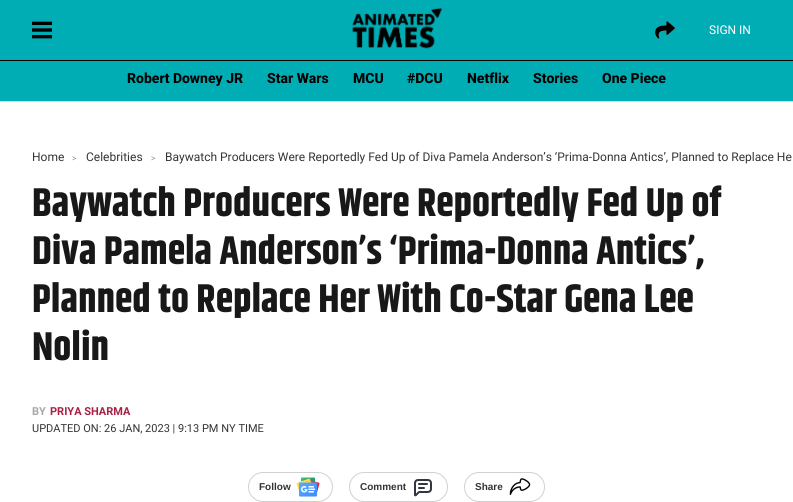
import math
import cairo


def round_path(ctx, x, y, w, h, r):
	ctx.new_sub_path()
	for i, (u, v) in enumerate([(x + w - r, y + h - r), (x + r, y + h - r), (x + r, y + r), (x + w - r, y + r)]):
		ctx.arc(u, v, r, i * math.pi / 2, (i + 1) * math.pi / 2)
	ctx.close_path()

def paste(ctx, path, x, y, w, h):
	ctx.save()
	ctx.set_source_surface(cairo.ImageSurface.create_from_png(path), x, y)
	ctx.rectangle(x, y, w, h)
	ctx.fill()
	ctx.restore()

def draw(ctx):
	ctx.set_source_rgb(1, 1, 1)
	ctx.paint()
	ctx.set_source_rgb(0.851, 0.851, 0.851)
	ctx.rectangle(0, 101, 793, 1)
	ctx.fill()
	ctx.set_source_rgb(0, 0.678, 0.71)
	ctx.rectangle(0, 0, 793, 101)
	ctx.fill()
	ctx.set_source_rgb(0, 0, 0)
	ctx.rectangle(0, 60, 793, 1)
	ctx.fill()
	paste(ctx, 'media/1.png', 32, 21, 20, 18)
	paste(ctx, 'media/2.png', 352, 7, 91, 42)
	paste(ctx, 'media/3.png', 655, 21, 20, 18)
	ctx.select_font_face('Roboto')
	ctx.set_font_size(12)
	ctx.set_source_rgb(1, 1, 1)
	ctx.move_to(709, 34)
	ctx.show_text('SIGN IN')
	ctx.select_font_face('Roboto ExtraBold')
	ctx.set_font_size(14)
	ctx.set_source_rgb(0, 0, 0)
	for x, y, s in [
		(127, 83, 'Robert Downey JR'),
		(267, 83, 'Star Wars'),
		(353, 83, 'MCU'),
		(407, 83, '#DCU'),
		(467, 83, 'Netflix'),
		(533, 83, 'Stories'),
		(602, 83, 'One Piece'),
	]:
		ctx.move_to(x, y)
		ctx.show_text(s)
	ctx.select_font_face('Roboto')
	ctx.set_font_size(12)
	ctx.set_source_rgb(0.204, 0.204, 0.204)
	ctx.move_to(32, 161)
	ctx.show_text('Home')
	ctx.select_font_face('Liberation Serif')
	ctx.set_font_size(8)
	ctx.move_to(72, 161)
	ctx.show_text('>')
	ctx.select_font_face('Roboto')
	ctx.set_font_size(12)
	ctx.move_to(86, 161)
	ctx.show_text('Celebrities')
	ctx.select_font_face('Liberation Serif')
	ctx.set_font_size(8)
	ctx.move_to(151, 161)
	ctx.show_text('>')
	ctx.select_font_face('Roboto')
	ctx.set_font_size(12)
	ctx.move_to(165, 161)
	ctx.show_text('Baywatch Producers Were Reportedly Fed Up of Diva Pamela Anderson’s ‘Prima-Donna Antics’, Planned to Replace He')
	ctx.select_font_face('Khand', cairo.FONT_SLANT_NORMAL, cairo.FONT_WEIGHT_BOLD)
	ctx.set_font_size(40)
	ctx.set_source_rgb(0.094, 0.094, 0.094)
	for x, y, s in [
		(32, 216, 'Baywatch Producers Were Reportedly Fed Up of'),
		(32, 264, 'Diva Pamela Anderson’s ‘Prima-Donna Antics’,'),
		(32, 312, 'Planned to Replace Her With Co-Star Gena Lee'),
		(32, 360, 'Nolin'),
	]:
		ctx.move_to(x, y)
		ctx.show_text(s)
	ctx.select_font_face('Roboto', cairo.FONT_SLANT_NORMAL, cairo.FONT_WEIGHT_BOLD)
	ctx.set_font_size(11)
	ctx.set_source_rgb(0.655, 0.655, 0.655)
	ctx.move_to(32, 415)
	ctx.show_text('BY')
	ctx.set_source_rgb(0.663, 0.122, 0.259)
	ctx.move_to(50, 415)
	ctx.show_text('PRIYA SHARMA')
	ctx.select_font_face('Roboto')
	ctx.set_source_rgb(0.204, 0.204, 0.204)
	ctx.move_to(32, 432)
	ctx.show_text('UPDATED ON: 26 JAN, 2023 | 9:13 PM NY TIME')
	round_path(ctx, 248.5, 472.5, 84, 29, 14.5)
	ctx.set_source_rgb(0.82, 0.82, 0.82)
	ctx.set_line_width(1)
	ctx.stroke()
	ctx.select_font_face('Liberation Sans', cairo.FONT_SLANT_NORMAL, cairo.FONT_WEIGHT_BOLD)
	ctx.set_font_size(10)
	ctx.set_source_rgb(0.204, 0.204, 0.204)
	ctx.move_to(259, 490)
	ctx.show_text('Follow')
	paste(ctx, 'media/4.png', 296, 477, 24, 20)
	round_path(ctx, 349.5, 472.5, 98, 29, 14.5)
	ctx.set_source_rgb(0.82, 0.82, 0.82)
	ctx.stroke()
	ctx.set_source_rgb(0.204, 0.204, 0.204)
	ctx.move_to(360, 490)
	ctx.show_text('Comment')
	paste(ctx, 'media/5.png', 414, 479, 18, 18)
	round_path(ctx, 464.5, 472.5, 80, 29, 14.5)
	ctx.set_source_rgb(0.82, 0.82, 0.82)
	ctx.stroke()
	ctx.set_source_rgb(0.204, 0.204, 0.204)
	ctx.move_to(475, 490)
	ctx.show_text('Share')
	paste(ctx, 'media/6.png', 509, 478, 22, 17)


surface = cairo.ImageSurface(cairo.FORMAT_RGB24, 793, 502)
ctx = cairo.Context(surface)
options = cairo.FontOptions()
options.set_hint_metrics(cairo.HINT_METRICS_OFF)
options.set_hint_style(cairo.HINT_STYLE_NONE)
ctx.set_font_options(options)
ctx.set_miter_limit(4)
draw(ctx)
surface.write_to_png('image.png')
